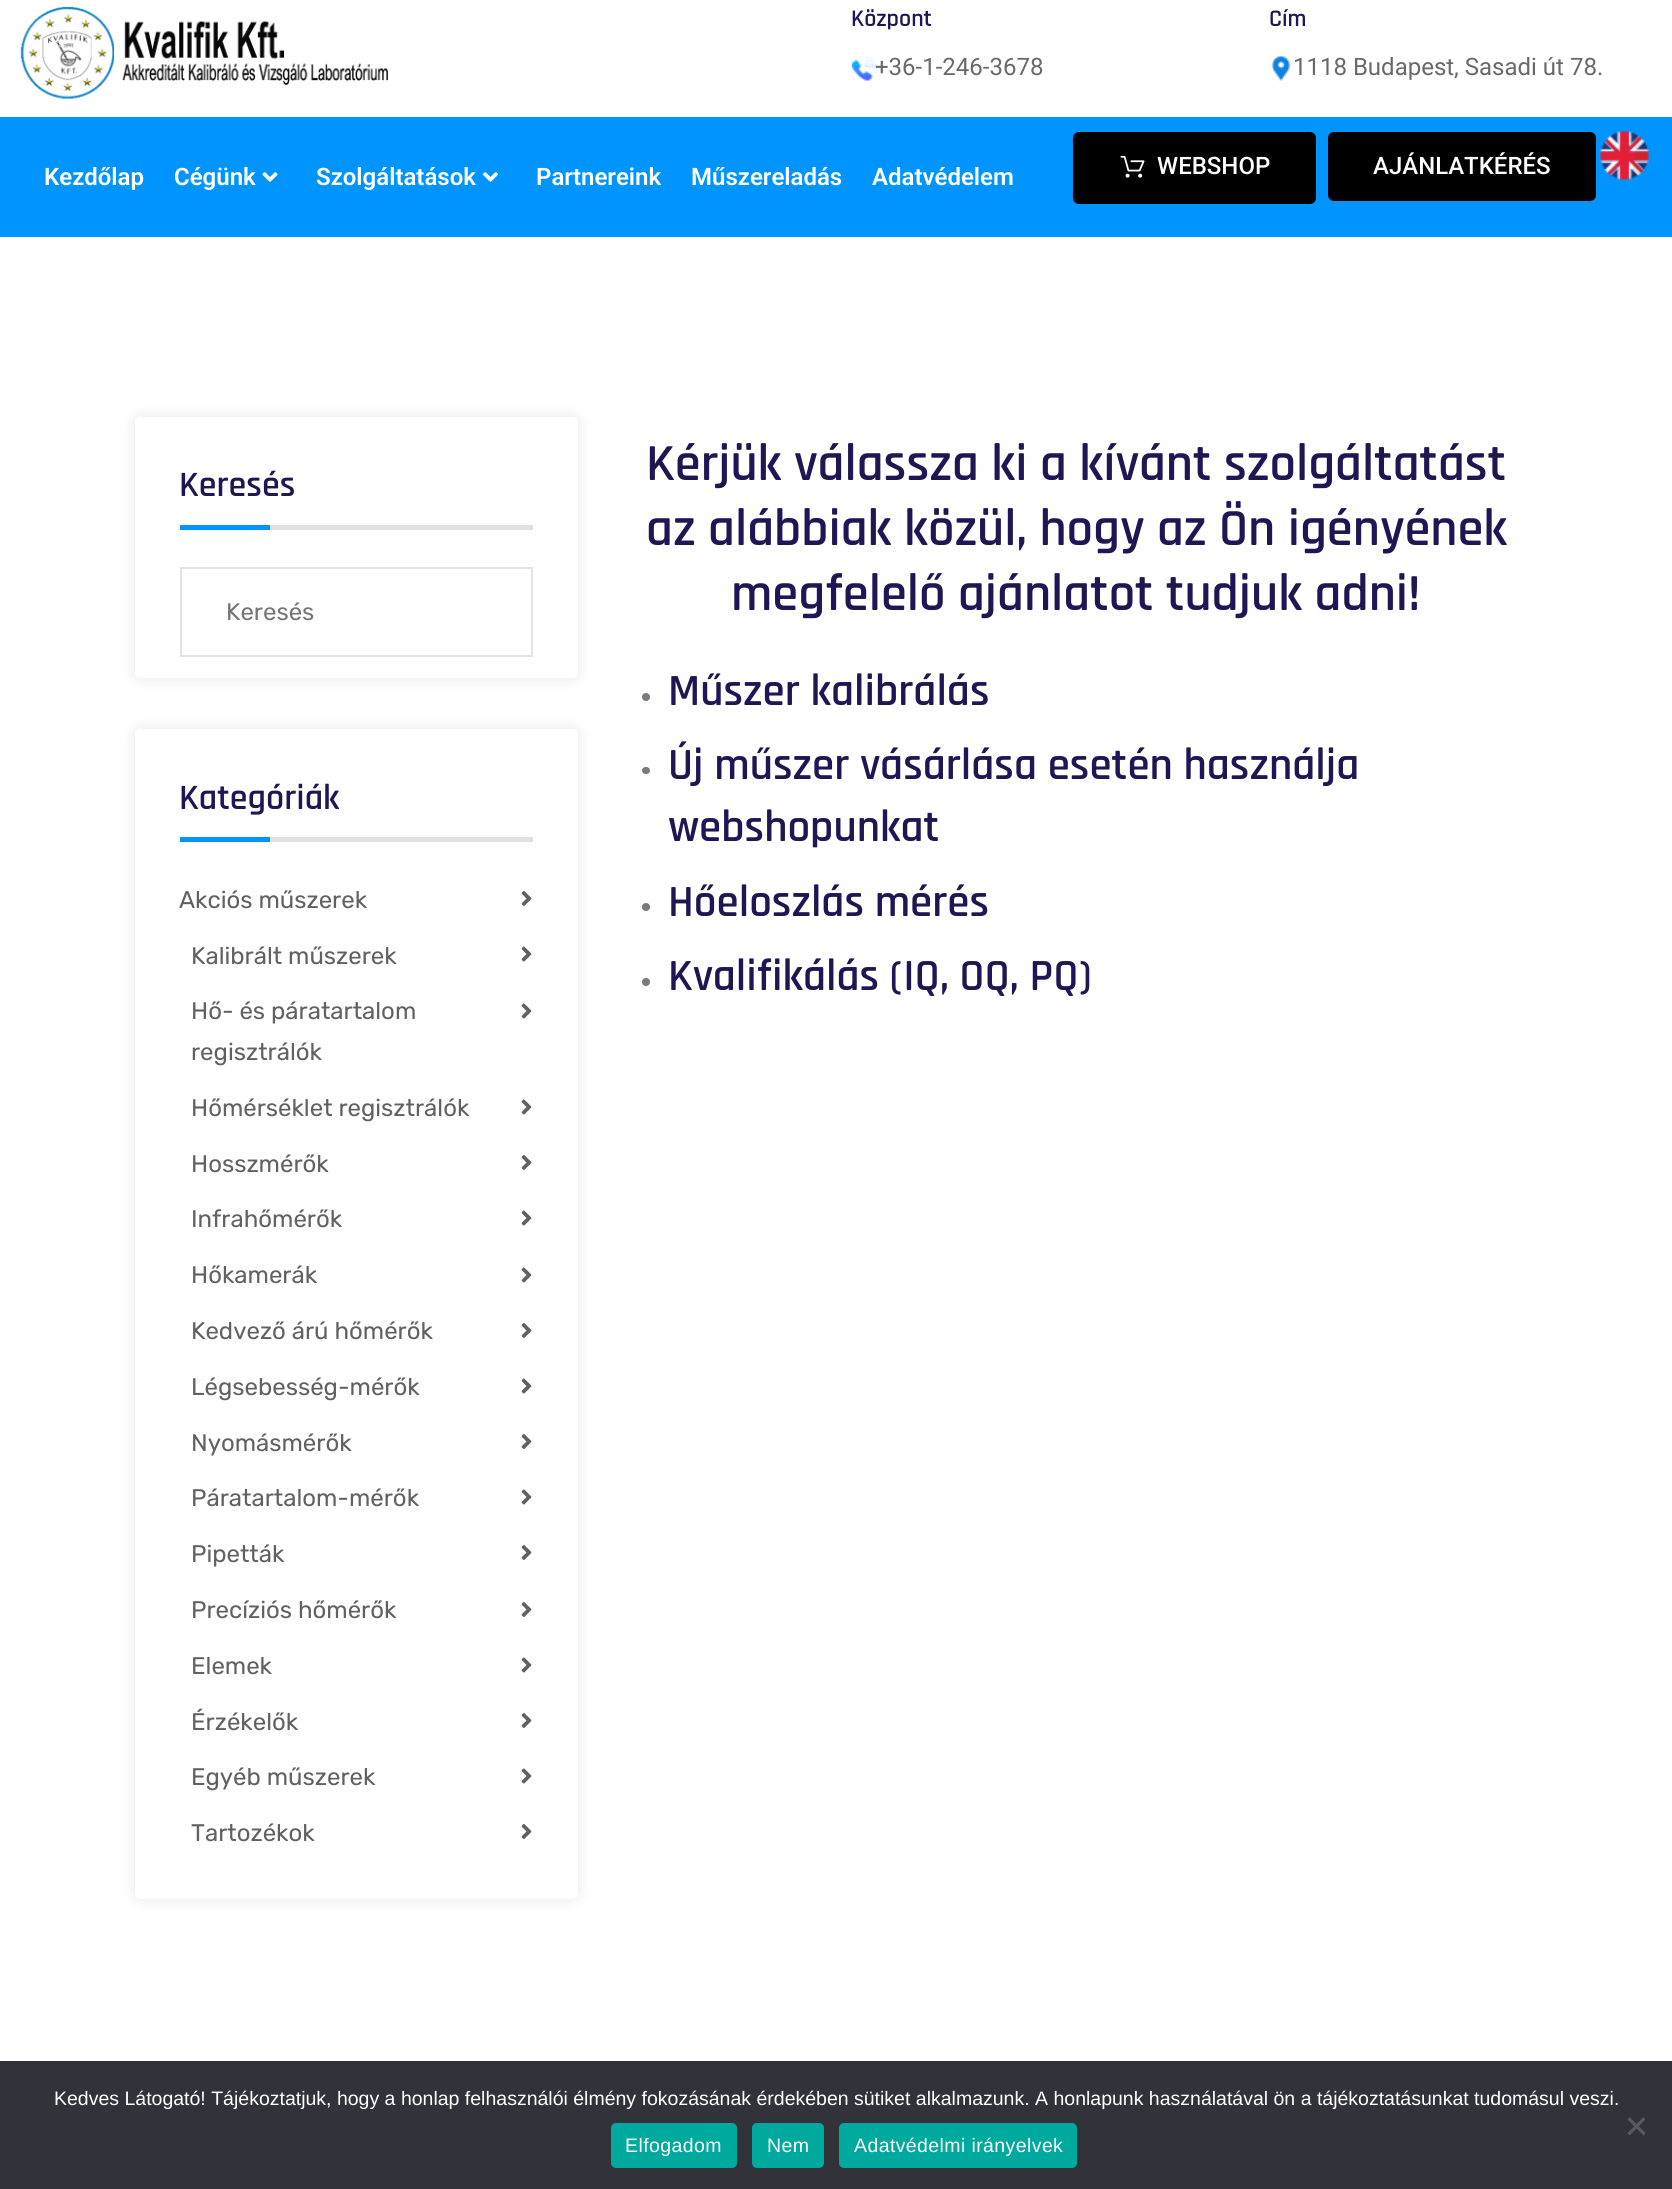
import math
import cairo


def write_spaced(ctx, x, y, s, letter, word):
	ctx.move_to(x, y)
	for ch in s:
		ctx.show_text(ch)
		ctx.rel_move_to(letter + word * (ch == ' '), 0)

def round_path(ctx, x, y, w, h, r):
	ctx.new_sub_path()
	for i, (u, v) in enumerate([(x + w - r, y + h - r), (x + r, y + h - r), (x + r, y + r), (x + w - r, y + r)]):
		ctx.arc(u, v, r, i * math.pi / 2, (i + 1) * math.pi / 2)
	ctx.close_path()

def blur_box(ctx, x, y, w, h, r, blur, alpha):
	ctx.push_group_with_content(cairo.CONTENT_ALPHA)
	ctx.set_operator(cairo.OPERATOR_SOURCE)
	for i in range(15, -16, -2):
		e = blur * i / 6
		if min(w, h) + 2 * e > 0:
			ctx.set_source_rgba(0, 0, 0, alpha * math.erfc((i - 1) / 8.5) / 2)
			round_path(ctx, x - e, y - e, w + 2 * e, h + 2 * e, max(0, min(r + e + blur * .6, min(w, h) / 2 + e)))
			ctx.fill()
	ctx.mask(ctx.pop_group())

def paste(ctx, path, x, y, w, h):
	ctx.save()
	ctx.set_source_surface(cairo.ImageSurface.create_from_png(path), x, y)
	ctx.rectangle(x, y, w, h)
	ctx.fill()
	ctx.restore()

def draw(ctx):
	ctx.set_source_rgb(1, 1, 1)
	ctx.paint()
	paste(ctx, 'media/1.png', 20, 6, 368, 93)
	ctx.select_font_face('Rajdhani SemiBold')
	ctx.set_font_size(24)
	ctx.set_source_rgb(0.125, 0.086, 0.329)
	ctx.move_to(851, 26)
	ctx.show_text('Központ')
	paste(ctx, 'media/2.png', 852, 56, 24, 25)
	ctx.select_font_face('Roboto')
	ctx.set_source_rgb(0.412, 0.412, 0.412)
	ctx.move_to(875, 75)
	ctx.show_text('+36-1-246-3678')
	ctx.select_font_face('Rajdhani SemiBold')
	ctx.set_source_rgb(0.125, 0.086, 0.329)
	ctx.move_to(1269, 26)
	ctx.show_text('Cím')
	paste(ctx, 'media/3.png', 1271, 56, 20, 25)
	ctx.select_font_face('Roboto')
	ctx.set_source_rgb(0.412, 0.412, 0.412)
	ctx.move_to(1293, 75)
	ctx.show_text('1118 Budapest, Sasadi út 78.')
	ctx.set_source_rgb(0, 0.58, 1)
	ctx.rectangle(0, 117, 1672, 120)
	ctx.fill()
	ctx.select_font_face('Roboto SemiBold')
	ctx.set_source_rgb(1, 1, 1)
	ctx.move_to(44, 185)
	ctx.show_text('Kezdőlap')
	ctx.move_to(174, 185)
	ctx.show_text('Cégünk')
	paste(ctx, 'media/4.png', 262, 172, 16, 10)
	ctx.move_to(316, 185)
	ctx.show_text('Szolgáltatások')
	paste(ctx, 'media/5.png', 483, 172, 15, 10)
	for x, y, s in [
		(536, 185, 'Partnereink'),
		(691, 185, 'Műszereladás'),
		(872, 185, 'Adatvédelem'),
	]:
		ctx.move_to(x, y)
		ctx.show_text(s)
	ctx.set_source_rgb(0, 0, 0)
	round_path(ctx, 1073, 132, 243, 72, 6)
	ctx.fill()
	paste(ctx, 'media/6.png', 1120, 155, 25, 23)
	ctx.select_font_face('Roboto Medium')
	ctx.set_source_rgb(1, 1, 1)
	ctx.move_to(1157, 174)
	ctx.show_text('WEBSHOP')
	ctx.set_source_rgb(0, 0, 0)
	round_path(ctx, 1328, 132, 268, 69, 6)
	ctx.fill()
	ctx.set_source_rgb(1, 1, 1)
	ctx.move_to(1373, 174)
	ctx.show_text('AJÁNLATKÉRÉS')
	paste(ctx, 'media/7.png', 1600, 131, 49, 49)
	ctx.save()
	ctx.set_fill_rule(cairo.FILL_RULE_EVEN_ODD)
	ctx.new_path()
	ctx.move_to(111, 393)
	ctx.line_to(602, 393)
	ctx.line_to(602, 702)
	ctx.line_to(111, 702)
	ctx.close_path()
	ctx.move_to(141, 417)
	ctx.line_to(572, 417)
	ctx.curve_to(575.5, 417, 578, 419.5, 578, 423)
	ctx.line_to(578, 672)
	ctx.curve_to(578, 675.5, 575.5, 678, 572, 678)
	ctx.line_to(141, 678)
	ctx.curve_to(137.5, 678, 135, 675.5, 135, 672)
	ctx.line_to(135, 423)
	ctx.curve_to(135, 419.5, 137.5, 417, 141, 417)
	ctx.close_path()
	ctx.clip()
	ctx.set_source_rgb(0, 0, 0)
	blur_box(ctx, 135, 417, 443, 261, 6, 7.5, 0.1)
	ctx.restore()
	ctx.select_font_face('Rajdhani SemiBold')
	ctx.set_font_size(36)
	ctx.set_source_rgb(0.125, 0.086, 0.329)
	ctx.move_to(179, 496)
	ctx.show_text('Keresés')
	ctx.set_source_rgb(0, 0.58, 1)
	ctx.rectangle(180, 525, 90, 5)
	ctx.fill()
	ctx.set_source_rgb(0.882, 0.882, 0.882)
	ctx.rectangle(270, 525, 263, 5)
	ctx.fill()
	ctx.rectangle(181, 568, 351, 88)
	ctx.set_source_rgb(0.89, 0.89, 0.89)
	ctx.stroke()
	ctx.select_font_face('Rubik Light')
	ctx.set_font_size(24)
	ctx.set_source_rgb(0.459, 0.459, 0.459)
	ctx.move_to(226, 620)
	ctx.show_text('Keresés')
	ctx.save()
	ctx.set_fill_rule(cairo.FILL_RULE_EVEN_ODD)
	ctx.new_path()
	ctx.move_to(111, 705)
	ctx.line_to(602, 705)
	ctx.line_to(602, 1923)
	ctx.line_to(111, 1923)
	ctx.close_path()
	ctx.move_to(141, 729)
	ctx.line_to(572, 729)
	ctx.curve_to(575.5, 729, 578, 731.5, 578, 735)
	ctx.line_to(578, 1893)
	ctx.curve_to(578, 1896.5, 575.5, 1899, 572, 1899)
	ctx.line_to(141, 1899)
	ctx.curve_to(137.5, 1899, 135, 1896.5, 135, 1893)
	ctx.line_to(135, 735)
	ctx.curve_to(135, 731.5, 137.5, 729, 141, 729)
	ctx.close_path()
	ctx.clip()
	ctx.set_source_rgb(0, 0, 0)
	blur_box(ctx, 135, 729, 443, 1170, 6, 7.5, 0.1)
	ctx.restore()
	ctx.select_font_face('Rajdhani SemiBold')
	ctx.set_font_size(36)
	ctx.set_source_rgb(0.125, 0.086, 0.329)
	ctx.move_to(179, 809)
	ctx.show_text('Kategóriák')
	ctx.set_source_rgb(0, 0.58, 1)
	ctx.rectangle(180, 837, 90, 5)
	ctx.fill()
	ctx.set_source_rgb(0.882, 0.882, 0.882)
	ctx.rectangle(270, 837, 263, 5)
	ctx.fill()
	ctx.select_font_face('Rubik Light')
	ctx.set_font_size(24)
	ctx.set_source_rgb(0.38, 0.38, 0.38)
	ctx.move_to(179, 908)
	ctx.show_text('Akciós műszerek')
	paste(ctx, 'media/8.png', 521, 891, 11, 15)
	ctx.move_to(191, 964)
	ctx.show_text('Kalibrált műszerek')
	paste(ctx, 'media/9.png', 521, 946, 11, 16)
	ctx.move_to(191, 1019)
	ctx.show_text('Hő- és páratartalom')
	paste(ctx, 'media/9.png', 521, 1003, 11, 16)
	ctx.move_to(191, 1060)
	ctx.show_text('regisztrálók')
	ctx.move_to(191, 1116)
	ctx.show_text('Hőmérséklet regisztrálók')
	paste(ctx, 'media/9.png', 521, 1099, 11, 16)
	ctx.move_to(191, 1172)
	ctx.show_text('Hosszmérők')
	paste(ctx, 'media/8.png', 521, 1155, 11, 15)
	ctx.move_to(191, 1227)
	ctx.show_text('Infrahőmérők')
	paste(ctx, 'media/9.png', 521, 1210, 11, 16)
	ctx.move_to(191, 1283)
	ctx.show_text('Hőkamerák')
	paste(ctx, 'media/9.png', 521, 1267, 11, 16)
	ctx.move_to(191, 1339)
	ctx.show_text('Kedvező árú hőmérők')
	paste(ctx, 'media/8.png', 521, 1323, 11, 15)
	ctx.move_to(191, 1395)
	ctx.show_text('Légsebesség-mérők')
	paste(ctx, 'media/9.png', 521, 1378, 11, 16)
	ctx.move_to(191, 1451)
	ctx.show_text('Nyomásmérők')
	paste(ctx, 'media/8.png', 521, 1434, 11, 15)
	ctx.move_to(191, 1506)
	ctx.show_text('Páratartalom-mérők')
	paste(ctx, 'media/9.png', 521, 1489, 11, 16)
	ctx.move_to(191, 1562)
	ctx.show_text('Pipetták')
	paste(ctx, 'media/8.png', 521, 1545, 11, 15)
	ctx.move_to(191, 1618)
	ctx.show_text('Precíziós hőmérők')
	paste(ctx, 'media/8.png', 521, 1602, 11, 15)
	ctx.move_to(191, 1674)
	ctx.show_text('Elemek')
	paste(ctx, 'media/9.png', 521, 1657, 11, 16)
	ctx.move_to(191, 1730)
	ctx.show_text('Érzékelők')
	paste(ctx, 'media/8.png', 521, 1713, 11, 15)
	ctx.move_to(191, 1785)
	ctx.show_text('Egyéb műszerek')
	paste(ctx, 'media/9.png', 521, 1768, 11, 16)
	ctx.move_to(191, 1841)
	ctx.show_text('Tartozékok')
	paste(ctx, 'media/8.png', 521, 1824, 11, 15)
	ctx.select_font_face('Rajdhani SemiBold')
	ctx.set_font_size(52.5)
	ctx.set_source_rgb(0.125, 0.086, 0.329)
	for x, y, s in [
		(646, 480, 'Kérjük válassza ki a kívánt szolgáltatást'),
		(646, 545, 'az alábbiak közül, hogy az Ön igényének'),
		(731, 610, 'megfelelő ajánlatot tudjuk adni!'),
	]:
		ctx.move_to(x, y)
		ctx.show_text(s)
	ctx.set_source_rgb(0.478, 0.478, 0.478)
	ctx.new_path()
	ctx.arc(646, 697, 4, 0, 2 * math.pi)
	ctx.fill()
	ctx.set_font_size(45)
	ctx.set_source_rgb(0.125, 0.086, 0.329)
	ctx.move_to(668, 705)
	ctx.show_text('Műszer kalibrálás')
	ctx.set_source_rgb(0.478, 0.478, 0.478)
	round_path(ctx, 642, 767, 8, 7, 3.5)
	ctx.fill()
	ctx.set_source_rgb(0.125, 0.086, 0.329)
	ctx.move_to(668, 779)
	ctx.show_text('Új műszer vásárlása esetén használja')
	ctx.move_to(668, 841)
	ctx.show_text('webshopunkat')
	ctx.set_source_rgb(0.478, 0.478, 0.478)
	ctx.new_path()
	ctx.arc(646, 907, 4, 0, 2 * math.pi)
	ctx.fill()
	ctx.set_source_rgb(0.125, 0.086, 0.329)
	ctx.move_to(668, 916)
	ctx.show_text('Hőeloszlás mérés')
	ctx.set_source_rgb(0.478, 0.478, 0.478)
	ctx.new_path()
	ctx.arc(646, 982, 4, 0, 2 * math.pi)
	ctx.fill()
	ctx.set_source_rgb(0.125, 0.086, 0.329)
	ctx.move_to(668, 990)
	ctx.show_text('Kvalifikálás (IQ, OQ, PQ)')
	ctx.set_source_rgb(0.196, 0.196, 0.227)
	ctx.rectangle(0, 2061, 1672, 128)
	ctx.fill()
	ctx.select_font_face('Liberation Sans')
	ctx.set_font_size(19.5)
	ctx.set_source_rgb(1, 1, 1)
	ctx.move_to(54, 2105)
	ctx.show_text('Kedves Látogató! Tájékoztatjuk, hogy a honlap felhasználói élmény fokozásának érdekében sütiket alkalmazunk. A honlapunk használatával ön a tájékoztatásunkat tudomásul veszi.')
	ctx.set_source_rgb(0.349, 0.349, 0.365)
	ctx.new_path()
	ctx.move_to(1643.5, 2117)
	ctx.line_to(1645.5, 2119.5)
	ctx.line_to(1629.5, 2135.5)
	ctx.line_to(1627.5, 2133)
	ctx.close_path()
	ctx.fill()
	ctx.new_path()
	ctx.move_to(1627.5, 2119.5)
	ctx.line_to(1629.5, 2117)
	ctx.line_to(1645.5, 2133)
	ctx.line_to(1643.5, 2135.5)
	ctx.close_path()
	ctx.fill()
	ctx.set_source_rgb(0, 0.663, 0.616)
	round_path(ctx, 611, 2123, 126, 45, 5)
	ctx.fill()
	ctx.set_source_rgb(1, 1, 1)
	write_spaced(ctx, 625, 2152, 'Elfogadom', 0.4, 0)
	ctx.set_source_rgb(0, 0.663, 0.616)
	round_path(ctx, 752, 2123, 72, 45, 5)
	ctx.fill()
	ctx.set_source_rgb(1, 1, 1)
	write_spaced(ctx, 767, 2152, 'Nem', 0.4, 0)
	ctx.set_source_rgb(0, 0.663, 0.616)
	round_path(ctx, 839, 2123, 238, 45, 5)
	ctx.fill()
	ctx.set_source_rgb(1, 1, 1)
	write_spaced(ctx, 854, 2152, 'Adatvédelmi irányelvek', 0.4, 0)


surface = cairo.ImageSurface(cairo.FORMAT_RGB24, 1672, 2189)
ctx = cairo.Context(surface)
options = cairo.FontOptions()
options.set_hint_metrics(cairo.HINT_METRICS_OFF)
options.set_hint_style(cairo.HINT_STYLE_NONE)
ctx.set_font_options(options)
ctx.set_miter_limit(4)
draw(ctx)
surface.write_to_png('image.png')
